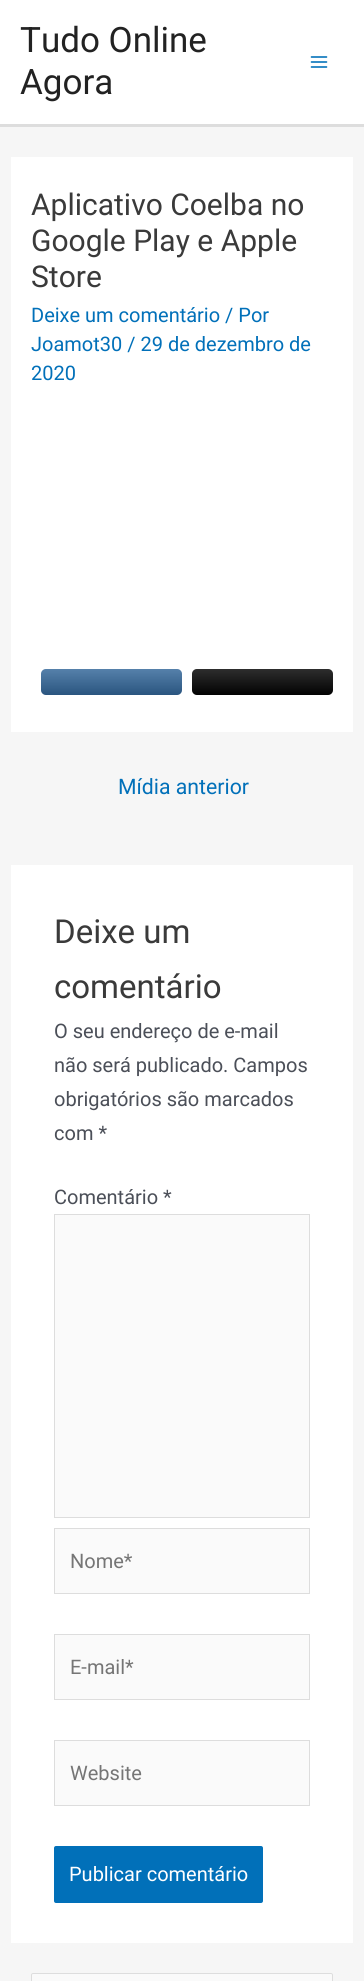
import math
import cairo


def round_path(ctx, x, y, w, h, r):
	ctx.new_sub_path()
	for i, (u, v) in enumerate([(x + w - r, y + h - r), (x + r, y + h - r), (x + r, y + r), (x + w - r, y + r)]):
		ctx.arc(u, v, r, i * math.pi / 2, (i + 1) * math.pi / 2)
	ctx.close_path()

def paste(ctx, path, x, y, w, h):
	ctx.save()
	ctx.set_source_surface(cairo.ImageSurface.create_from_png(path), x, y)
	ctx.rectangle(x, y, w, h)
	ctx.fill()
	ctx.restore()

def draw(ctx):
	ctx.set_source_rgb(0.961, 0.961, 0.961)
	ctx.paint()
	ctx.set_source_rgb(1, 1, 1)
	ctx.rectangle(0, 0, 364, 124)
	ctx.fill()
	ctx.set_source_rgb(0.867, 0.867, 0.867)
	ctx.rectangle(0, 124, 364, 3)
	ctx.fill()
	ctx.select_font_face('Roboto')
	ctx.set_font_size(35)
	ctx.set_source_rgb(0.133, 0.133, 0.133)
	ctx.move_to(20, 52)
	ctx.show_text('Tudo Online')
	ctx.move_to(20, 94)
	ctx.show_text('Agora')
	paste(ctx, 'media/1.png', 310, 56, 18, 12)
	ctx.set_source_rgb(1, 1, 1)
	ctx.rectangle(11, 157, 342, 575)
	ctx.fill()
	ctx.set_font_size(30)
	ctx.set_source_rgb(0.227, 0.227, 0.227)
	for x, y, s in [
		(31, 215, 'Aplicativo Coelba no'),
		(31, 251, 'Google Play e Apple'),
		(31, 287, 'Store'),
	]:
		ctx.move_to(x, y)
		ctx.show_text(s)
	ctx.set_font_size(20)
	ctx.set_source_rgb(0.004, 0.439, 0.725)
	for x, y, s in [
		(31, 322, 'Deixe um comentário / Por'),
		(31, 351, 'Joamot30 / 29 de dezembro de'),
		(31, 380, '2020'),
	]:
		ctx.move_to(x, y)
		ctx.show_text(s)
	ctx.set_source_rgb(0.2, 0.4, 0.6)
	round_path(ctx, 41, 669, 141, 26, 5)
	ctx.fill()
	gradient = cairo.LinearGradient(112, 695, 112, 669)
	gradient.add_color_stop_rgba(0, 0, 0, 0, 0.17)
	gradient.add_color_stop_rgba(1, 1, 1, 1, 0.17)
	ctx.set_source(gradient)
	round_path(ctx, 41, 669, 141, 26, 5)
	ctx.fill()
	ctx.set_source_rgb(0.008, 0.008, 0.008)
	round_path(ctx, 192, 669, 141, 26, 5)
	ctx.fill()
	gradient = cairo.LinearGradient(263, 695, 263, 669)
	gradient.add_color_stop_rgba(0, 0, 0, 0, 0.17)
	gradient.add_color_stop_rgba(1, 1, 1, 1, 0.17)
	ctx.set_source(gradient)
	round_path(ctx, 192, 669, 141, 26, 5)
	ctx.fill()
	ctx.set_font_size(21.25)
	ctx.set_source_rgb(0.004, 0.439, 0.725)
	ctx.move_to(118, 794)
	ctx.show_text('Mídia anterior')
	ctx.set_source_rgb(1, 1, 1)
	ctx.rectangle(11, 865, 342, 1078)
	ctx.fill()
	ctx.set_font_size(33)
	ctx.set_source_rgb(0.227, 0.227, 0.227)
	ctx.move_to(54, 943)
	ctx.show_text('Deixe um')
	ctx.move_to(54, 998)
	ctx.show_text('comentário')
	ctx.set_font_size(20)
	ctx.set_source_rgb(0.294, 0.31, 0.345)
	for x, y, s in [
		(54, 1038, 'O seu endereço de e-mail'),
		(54, 1072, 'não será publicado. Campos'),
		(54, 1106, 'obrigatórios são marcados'),
		(54, 1140, 'com *'),
		(54, 1204, 'Comentário *'),
	]:
		ctx.move_to(x, y)
		ctx.show_text(s)
	ctx.set_source_rgb(0.98, 0.98, 0.98)
	ctx.rectangle(54.5, 1214.5, 255, 303)
	ctx.fill_preserve()
	ctx.set_source_rgb(0.867, 0.867, 0.867)
	ctx.set_line_width(1)
	ctx.stroke()
	ctx.set_source_rgb(0.98, 0.98, 0.98)
	ctx.rectangle(54.5, 1528.5, 255, 65)
	ctx.fill_preserve()
	ctx.set_source_rgb(0.867, 0.867, 0.867)
	ctx.stroke()
	ctx.set_source_rgb(0.459, 0.459, 0.459)
	ctx.move_to(70, 1568)
	ctx.show_text('Nome*')
	ctx.set_source_rgb(0.98, 0.98, 0.98)
	ctx.rectangle(54.5, 1634.5, 255, 65)
	ctx.fill_preserve()
	ctx.set_source_rgb(0.867, 0.867, 0.867)
	ctx.stroke()
	ctx.set_source_rgb(0.459, 0.459, 0.459)
	ctx.move_to(70, 1674)
	ctx.show_text('E-mail*')
	ctx.set_source_rgb(0.98, 0.98, 0.98)
	ctx.rectangle(54.5, 1740.5, 255, 65)
	ctx.fill_preserve()
	ctx.set_source_rgb(0.867, 0.867, 0.867)
	ctx.stroke()
	ctx.set_source_rgb(0.459, 0.459, 0.459)
	ctx.move_to(70, 1780)
	ctx.show_text('Website')
	ctx.set_source_rgb(0.004, 0.439, 0.725)
	round_path(ctx, 54, 1846, 209, 57, 2)
	ctx.fill()
	ctx.set_source_rgb(1, 1, 1)
	ctx.move_to(69, 1881)
	ctx.show_text('Publicar comentário')
	ctx.set_source_rgb(0.98, 0.98, 0.98)
	round_path(ctx, 31.5, 1973.5, 301, 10, 1.5)
	ctx.fill_preserve()
	ctx.set_source_rgb(0.867, 0.867, 0.867)
	ctx.stroke()


surface = cairo.ImageSurface(cairo.FORMAT_RGB24, 364, 1981)
ctx = cairo.Context(surface)
options = cairo.FontOptions()
options.set_hint_metrics(cairo.HINT_METRICS_OFF)
options.set_hint_style(cairo.HINT_STYLE_NONE)
ctx.set_font_options(options)
ctx.set_miter_limit(4)
draw(ctx)
surface.write_to_png('image.png')
